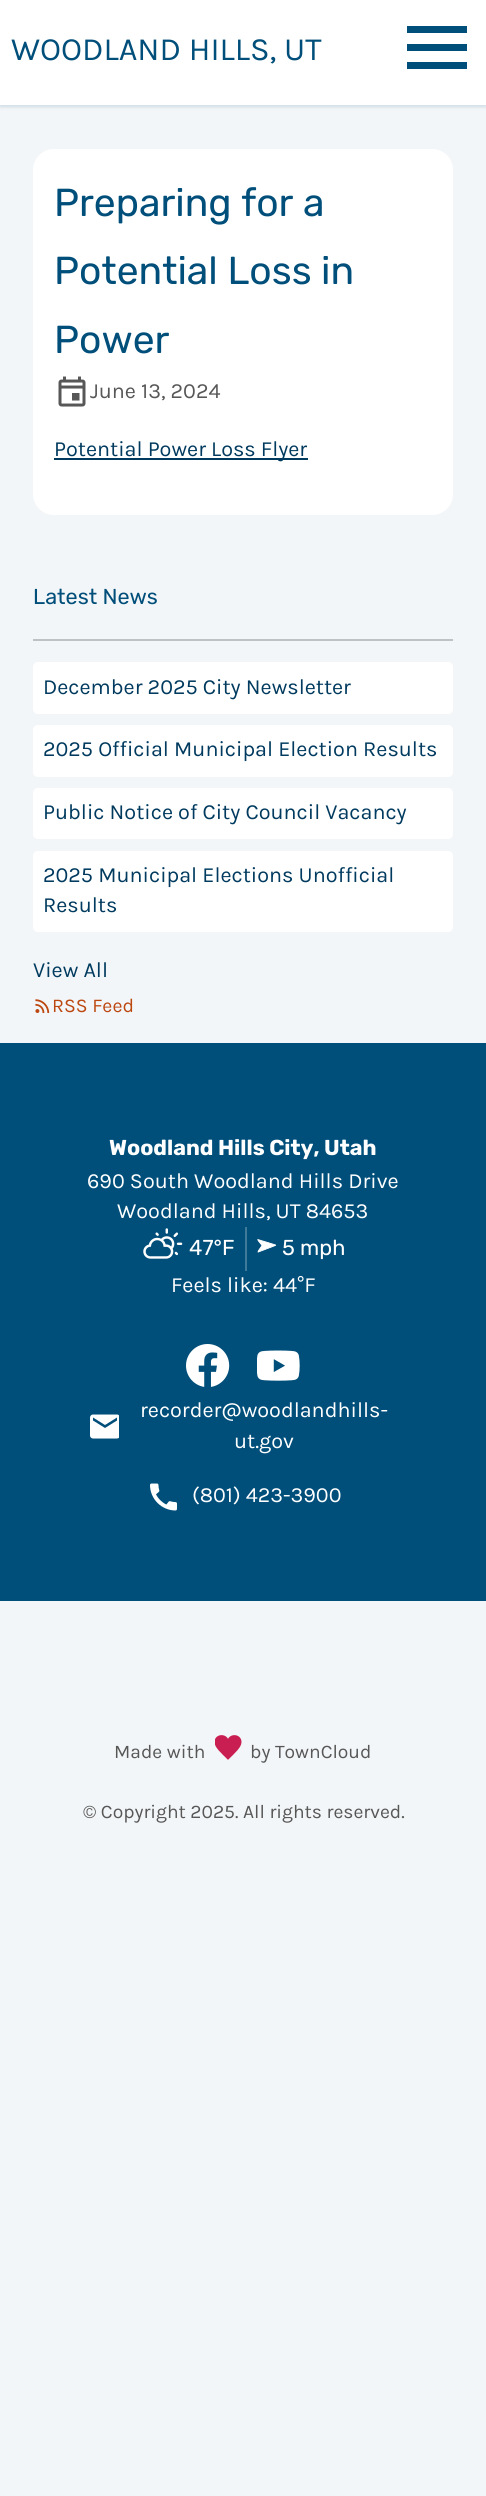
import math
import cairo


def round_path(ctx, x, y, w, h, r):
	ctx.new_sub_path()
	for i, (u, v) in enumerate([(x + w - r, y + h - r), (x + r, y + h - r), (x + r, y + r), (x + w - r, y + r)]):
		ctx.arc(u, v, r, i * math.pi / 2, (i + 1) * math.pi / 2)
	ctx.close_path()

def blur_box(ctx, x, y, w, h, r, blur, alpha):
	ctx.push_group_with_content(cairo.CONTENT_ALPHA)
	ctx.set_operator(cairo.OPERATOR_SOURCE)
	for i in range(15, -16, -2):
		e = blur * i / 6
		if min(w, h) + 2 * e > 0:
			ctx.set_source_rgba(0, 0, 0, alpha * math.erfc((i - 1) / 8.5) / 2)
			round_path(ctx, x - e, y - e, w + 2 * e, h + 2 * e, max(0, min(r + e + blur * .6, min(w, h) / 2 + e)))
			ctx.fill()
	ctx.mask(ctx.pop_group())

def paste(ctx, path, x, y, w, h):
	ctx.save()
	ctx.set_source_surface(cairo.ImageSurface.create_from_png(path), x, y)
	ctx.rectangle(x, y, w, h)
	ctx.fill()
	ctx.restore()

def draw(ctx):
	ctx.set_source_rgb(0.953, 0.961, 0.969)
	ctx.paint()
	ctx.set_source_rgb(0, 0.306, 0.478)
	blur_box(ctx, 0, 2, 486, 105, 0, 1.5, 0.06)
	blur_box(ctx, 0, 2, 486, 105, 0, 2, 0.1)
	ctx.set_source_rgb(1, 1, 1)
	ctx.rectangle(0, 0, 486, 105)
	ctx.fill()
	ctx.select_font_face('Karla')
	ctx.set_font_size(32.5)
	ctx.set_source_rgb(0, 0.306, 0.478)
	ctx.move_to(11, 60)
	ctx.show_text('WOODLAND HILLS, UT')
	ctx.rectangle(407, 26, 60, 7)
	ctx.rectangle(407, 44, 60, 7)
	ctx.rectangle(407, 62, 60, 7)
	ctx.fill()
	ctx.set_source_rgb(1, 1, 1)
	round_path(ctx, 33, 149, 420, 366, 21)
	ctx.fill()
	ctx.select_font_face('Rubik')
	ctx.set_font_size(39)
	ctx.set_source_rgb(0, 0.306, 0.478)
	for x, y, s in [
		(54, 216, 'Preparing for a'),
		(54, 284, 'Potential Loss in'),
		(54, 353, 'Power'),
	]:
		ctx.move_to(x, y)
		ctx.show_text(s)
	paste(ctx, 'media/1.png', 58, 376, 28, 31)
	ctx.select_font_face('Karla')
	ctx.set_font_size(21.6)
	ctx.set_source_rgb(0.341, 0.341, 0.341)
	ctx.move_to(90, 398)
	ctx.show_text('June 13, 2024')
	ctx.set_source_rgb(0, 0.227, 0.369)
	ctx.rectangle(54, 458, 254, 2)
	ctx.fill()
	ctx.move_to(54, 456)
	ctx.show_text('Potential Power Loss Flyer')
	ctx.select_font_face('Rubik')
	ctx.set_source_rgb(0, 0.306, 0.478)
	ctx.move_to(33, 604)
	ctx.show_text('Latest News')
	ctx.set_source_rgb(0.753, 0.757, 0.765)
	ctx.rectangle(33, 639, 420, 2)
	ctx.fill()
	ctx.set_source_rgb(1, 1, 1)
	round_path(ctx, 33, 662, 420, 52, 5)
	ctx.fill()
	ctx.select_font_face('Karla')
	ctx.set_source_rgb(0, 0.227, 0.369)
	ctx.move_to(43, 694)
	ctx.show_text('December 2025 City Newsletter')
	ctx.set_source_rgb(1, 1, 1)
	round_path(ctx, 33, 725, 420, 52, 5)
	ctx.fill()
	ctx.set_source_rgb(0, 0.227, 0.369)
	ctx.move_to(43, 756)
	ctx.show_text('2025 Official Municipal Election Results')
	ctx.set_source_rgb(1, 1, 1)
	round_path(ctx, 33, 788, 420, 51, 5)
	ctx.fill()
	ctx.set_source_rgb(0, 0.227, 0.369)
	ctx.move_to(43, 819)
	ctx.show_text('Public Notice of City Council Vacancy')
	ctx.set_source_rgb(1, 1, 1)
	round_path(ctx, 33, 851, 420, 81, 5)
	ctx.fill()
	ctx.set_source_rgb(0, 0.227, 0.369)
	for x, y, s in [
		(43, 882, '2025 Municipal Elections Unofficial'),
		(43, 912, 'Results'),
		(33, 977, 'View All'),
	]:
		ctx.move_to(x, y)
		ctx.show_text(s)
	paste(ctx, 'media/2.png', 35, 999, 15, 14)
	ctx.set_font_size(19.5)
	ctx.set_source_rgb(0.737, 0.278, 0.063)
	ctx.move_to(52, 1012)
	ctx.show_text('RSS Feed')
	ctx.set_source_rgb(0, 0.306, 0.478)
	ctx.rectangle(0, 1043, 486, 558)
	ctx.fill()
	ctx.select_font_face('Rubik', cairo.FONT_SLANT_NORMAL, cairo.FONT_WEIGHT_BOLD)
	ctx.set_font_size(21.6)
	ctx.set_source_rgb(1, 1, 1)
	ctx.move_to(109, 1155)
	ctx.show_text('Woodland Hills City, Utah')
	ctx.select_font_face('Karla')
	ctx.move_to(87, 1188)
	ctx.show_text('690 South Woodland Hills Drive')
	ctx.move_to(117, 1218)
	ctx.show_text('Woodland Hills, UT 84653')
	ctx.set_source_rgb(0.251, 0.478, 0.608)
	ctx.rectangle(245, 1227, 2, 44)
	ctx.fill()
	paste(ctx, 'media/3.png', 143, 1228, 40, 31)
	ctx.select_font_face('Rubik')
	ctx.set_source_rgb(1, 1, 1)
	ctx.move_to(189, 1255)
	ctx.show_text('47°F')
	paste(ctx, 'media/4.png', 257, 1239, 20, 14)
	ctx.move_to(282, 1255)
	ctx.show_text('5 mph')
	ctx.select_font_face('Karla')
	ctx.move_to(171, 1292)
	ctx.show_text('Feels like: 44°F')
	paste(ctx, 'media/5.png', 186, 1344, 44, 43)
	paste(ctx, 'media/6.png', 257, 1350, 43, 31)
	paste(ctx, 'media/7.png', 90, 1414, 29, 25)
	ctx.move_to(140, 1417)
	ctx.show_text('recorder@woodlandhills-')
	ctx.move_to(234, 1448)
	ctx.show_text('ut.gov')
	paste(ctx, 'media/8.png', 150, 1483, 27, 28)
	ctx.move_to(192, 1502)
	ctx.show_text('(801) 423-3900')
	ctx.set_font_size(19.25)
	ctx.set_source_rgb(0.341, 0.341, 0.341)
	ctx.move_to(114, 1758)
	ctx.show_text('Made with')
	paste(ctx, 'media/9.png', 215, 1735, 27, 25)
	ctx.move_to(250, 1758)
	ctx.show_text('by TownCloud')
	ctx.move_to(83, 1818)
	ctx.show_text('© Copyright 2025. All rights reserved.')


surface = cairo.ImageSurface(cairo.FORMAT_RGB24, 486, 2496)
ctx = cairo.Context(surface)
options = cairo.FontOptions()
options.set_hint_metrics(cairo.HINT_METRICS_OFF)
options.set_hint_style(cairo.HINT_STYLE_NONE)
ctx.set_font_options(options)
ctx.set_miter_limit(4)
draw(ctx)
surface.write_to_png('image.png')
